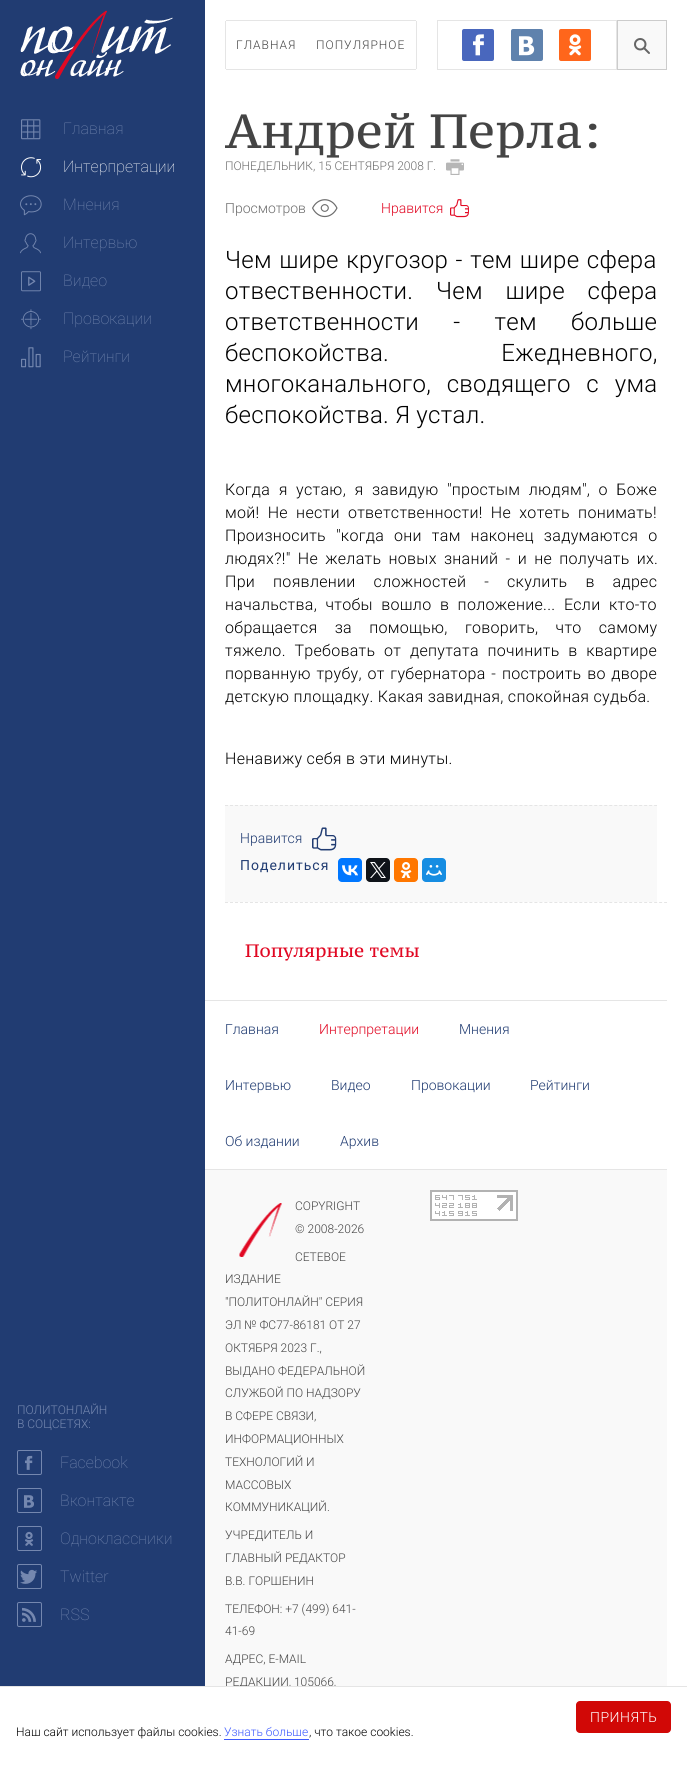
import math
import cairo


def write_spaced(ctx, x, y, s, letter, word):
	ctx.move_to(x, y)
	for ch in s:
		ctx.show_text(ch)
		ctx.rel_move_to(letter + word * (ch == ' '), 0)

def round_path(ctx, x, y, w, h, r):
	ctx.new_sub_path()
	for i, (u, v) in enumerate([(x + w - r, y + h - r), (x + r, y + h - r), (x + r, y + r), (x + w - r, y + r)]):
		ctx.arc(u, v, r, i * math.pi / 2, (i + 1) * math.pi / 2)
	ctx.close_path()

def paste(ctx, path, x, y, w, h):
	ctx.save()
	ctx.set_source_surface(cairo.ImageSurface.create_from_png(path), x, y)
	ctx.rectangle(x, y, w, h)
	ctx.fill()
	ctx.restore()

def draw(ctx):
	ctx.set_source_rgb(1, 1, 1)
	ctx.paint()
	ctx.set_source_rgb(0.129, 0.235, 0.447)
	ctx.rectangle(0, 0, 205, 1686)
	ctx.fill()
	paste(ctx, 'media/1.png', 20, 10, 153, 69)
	paste(ctx, 'media/2.png', 21, 119, 20, 21)
	ctx.select_font_face('Roboto Thin')
	ctx.set_font_size(16)
	ctx.set_source_rgb(0.455, 0.529, 0.686)
	ctx.move_to(63, 134)
	ctx.show_text('Главная')
	paste(ctx, 'media/3.png', 21, 157, 21, 21)
	ctx.set_source_rgb(1, 1, 1)
	ctx.move_to(63, 172)
	ctx.show_text('Интерпретации')
	paste(ctx, 'media/4.png', 20, 195, 22, 21)
	ctx.set_source_rgb(0.455, 0.529, 0.686)
	ctx.move_to(63, 210)
	ctx.show_text('Мнения')
	paste(ctx, 'media/5.png', 20, 233, 21, 21)
	ctx.move_to(63, 248)
	ctx.show_text('Интервью')
	paste(ctx, 'media/6.png', 21, 271, 20, 21)
	ctx.move_to(63, 286)
	ctx.show_text('Видео')
	paste(ctx, 'media/7.png', 21, 309, 20, 21)
	ctx.move_to(63, 324)
	ctx.show_text('Провокации')
	paste(ctx, 'media/8.png', 21, 347, 20, 21)
	ctx.move_to(63, 362)
	ctx.show_text('Рейтинги')
	ctx.select_font_face('Roboto Light')
	ctx.set_font_size(12)
	ctx.move_to(17, 1414)
	ctx.show_text('ПОЛИТОНЛАЙН')
	ctx.move_to(17, 1428)
	ctx.show_text('В СОЦСЕТЯХ:')
	round_path(ctx, 17.5, 1450.5, 24, 24, 1.5)
	ctx.set_line_width(1)
	ctx.stroke()
	paste(ctx, 'media/9.png', 25, 1455, 8, 15)
	ctx.select_font_face('Roboto Thin')
	ctx.set_font_size(16)
	ctx.move_to(60, 1468)
	ctx.show_text('Facebook')
	round_path(ctx, 17.5, 1488.5, 24, 24, 1.5)
	ctx.stroke()
	paste(ctx, 'media/10.png', 24, 1495, 10, 13)
	ctx.move_to(60, 1506)
	ctx.show_text('Вконтакте')
	round_path(ctx, 17.5, 1526.5, 24, 24, 1.5)
	ctx.stroke()
	paste(ctx, 'media/11.png', 25, 1531, 9, 15)
	ctx.move_to(60, 1544)
	ctx.show_text('Одноклассники')
	round_path(ctx, 17.5, 1564.5, 24, 24, 1.5)
	ctx.stroke()
	paste(ctx, 'media/12.png', 20, 1569, 17, 15)
	ctx.move_to(60, 1582)
	ctx.show_text('Twitter')
	round_path(ctx, 17.5, 1602.5, 24, 24, 1.5)
	ctx.stroke()
	paste(ctx, 'media/13.png', 22, 1607, 14, 15)
	ctx.move_to(60, 1620)
	ctx.show_text('RSS')
	ctx.set_source_rgb(0.898, 0.898, 0.898)
	ctx.rectangle(226, 20, 190, 1)
	ctx.rectangle(226, 69, 190, 1)
	ctx.rectangle(225, 21, 1, 48)
	ctx.fill()
	ctx.select_font_face('Roboto Light')
	ctx.set_font_size(12)
	ctx.set_source_rgb(0.267, 0.267, 0.267)
	write_spaced(ctx, 236, 49, 'ГЛАВНАЯ', 1, 0)
	ctx.set_source_rgb(0.898, 0.898, 0.898)
	ctx.rectangle(416, 21, 1, 48)
	ctx.fill()
	ctx.set_source_rgb(0.267, 0.267, 0.267)
	write_spaced(ctx, 316, 49, 'ПОПУЛЯРНОЕ', 1, 0)
	ctx.rectangle(437.5, 20.5, 179, 49)
	ctx.set_source_rgb(0.898, 0.898, 0.898)
	ctx.stroke()
	ctx.set_source_rgb(0.286, 0.404, 0.741)
	round_path(ctx, 462, 29, 32, 32, 2)
	ctx.fill()
	paste(ctx, 'media/14.png', 473, 34, 11, 22)
	ctx.set_source_rgb(0.373, 0.51, 0.678)
	round_path(ctx, 511, 29, 32, 32, 2)
	ctx.fill()
	paste(ctx, 'media/15.png', 519, 36, 16, 20)
	ctx.set_source_rgb(1, 0.4, 0.106)
	round_path(ctx, 559, 29, 32, 32, 2)
	ctx.fill()
	paste(ctx, 'media/16.png', 569, 34, 13, 22)
	ctx.set_source_rgb(0.976, 0.976, 0.976)
	ctx.rectangle(617.5, 20.5, 49, 49)
	ctx.fill_preserve()
	ctx.set_source_rgb(0.8, 0.8, 0.8)
	ctx.stroke()
	paste(ctx, 'media/17.png', 634, 38, 16, 16)
	ctx.new_path()
	ctx.move_to(225, 902.5)
	ctx.line_to(667, 902.5)
	ctx.set_source_rgb(0.898, 0.898, 0.898)
	ctx.set_dash([3, 1.99])
	ctx.stroke()
	ctx.select_font_face('PT Serif Caption')
	ctx.set_font_size(48)
	ctx.set_source_rgb(0.267, 0.267, 0.267)
	ctx.move_to(225, 148)
	ctx.show_text('Андрей Перла:')
	ctx.select_font_face('Roboto Light')
	ctx.set_font_size(12)
	ctx.set_source_rgb(0.427, 0.427, 0.427)
	ctx.move_to(225, 170)
	ctx.show_text('ПОНЕДЕЛЬНИК, 15 СЕНТЯБРЯ 2008 Г.')
	paste(ctx, 'media/18.png', 446, 159, 18, 16)
	ctx.set_font_size(14)
	ctx.move_to(225, 213)
	ctx.show_text('Просмотров')
	paste(ctx, 'media/19.png', 312, 199, 26, 19)
	ctx.set_source_rgb(0.882, 0.035, 0.137)
	ctx.move_to(381, 213)
	ctx.show_text('Нравится')
	paste(ctx, 'media/20.png', 450, 199, 19, 19)
	ctx.set_font_size(24)
	ctx.set_source_rgb(0, 0, 0)
	write_spaced(ctx, 225, 268, 'Чем шире кругозор - тем шире сфера', 0.3, 1.25)
	write_spaced(ctx, 225, 299, 'отвественности. Чем шире сфера', 0.3, 16.5)
	write_spaced(ctx, 225, 330, 'ответственности - тем больше', 0.3, 28)
	write_spaced(ctx, 225, 361, 'беспокойства. Ежедневного,', 0.3, 106)
	write_spaced(ctx, 225, 392, 'многоканального, сводящего с ума', 0.3, 9.5)
	write_spaced(ctx, 225, 423, 'беспокойства. Я устал.', 0.3, 0)
	ctx.set_font_size(16)
	write_spaced(ctx, 225, 495, 'Когда я устаю, я завидую "простым людям", о Боже', 0.3, 4.25)
	write_spaced(ctx, 225, 518, 'мой! Не нести ответственности! Не хотеть понимать!', 0.3, 4)
	write_spaced(ctx, 225, 541, 'Произносить "когда они там наконец задумаются о', 0.3, 5.75)
	write_spaced(ctx, 225, 564, 'людях?!" Не желать новых знаний - и не получать их.', 0.3, 3)
	write_spaced(ctx, 225, 587, 'При появлении сложностей - скулить в адрес', 0.3, 13.75)
	write_spaced(ctx, 225, 610, 'начальства, чтобы вошло в положение... Если кто-то', 0.3, 4.25)
	write_spaced(ctx, 225, 633, 'обращается за помощью, говорить, что самому', 0.3, 13)
	write_spaced(ctx, 225, 656, 'тяжело. Требовать от депутата починить в квартире', 0.3, 4.5)
	write_spaced(ctx, 225, 679, 'порванную трубу, от губернатора - построить во дворе', 0.3, 1.5)
	write_spaced(ctx, 225, 702, 'детскую площадку. Какая завидная, спокойная судьба.', 0.3, 0)
	write_spaced(ctx, 225, 764, 'Ненавижу себя в эти минуты.', 0.3, 0)
	ctx.set_source_rgb(0.976, 0.976, 0.976)
	ctx.rectangle(225, 805, 432, 97)
	ctx.fill()
	ctx.new_path()
	ctx.move_to(225, 805.5)
	ctx.line_to(657, 805.5)
	ctx.set_source_rgb(0.898, 0.898, 0.898)
	ctx.stroke()
	ctx.set_font_size(14)
	ctx.set_source_rgb(0.129, 0.235, 0.447)
	ctx.move_to(240, 843)
	ctx.show_text('Нравится')
	paste(ctx, 'media/21.png', 312, 827, 25, 24)
	ctx.select_font_face('Roboto')
	write_spaced(ctx, 240, 870, 'Поделиться', 1, 0)
	ctx.set_source_rgb(0, 0.467, 1)
	round_path(ctx, 338, 858, 24, 24, 4)
	ctx.fill()
	paste(ctx, 'media/22.png', 342, 865, 16, 11)
	ctx.set_source_rgb(0.059, 0.078, 0.098)
	round_path(ctx, 366, 858, 24, 24, 4)
	ctx.fill()
	paste(ctx, 'media/23.png', 370, 862, 16, 16)
	ctx.set_source_rgb(1, 0.467, 0)
	round_path(ctx, 394, 858, 24, 24, 4)
	ctx.fill()
	paste(ctx, 'media/24.png', 400, 862, 12, 16)
	ctx.set_source_rgb(0.086, 0.553, 0.886)
	round_path(ctx, 422, 858, 24, 24, 4)
	ctx.fill()
	paste(ctx, 'media/25.png', 426, 865, 16, 11)
	ctx.select_font_face('PT Serif Caption')
	ctx.set_font_size(18)
	ctx.set_source_rgb(0.882, 0.035, 0.137)
	ctx.move_to(245, 957)
	ctx.show_text('Популярные темы')
	ctx.set_source_rgb(0.898, 0.898, 0.898)
	ctx.rectangle(205, 1000, 462, 1)
	ctx.fill()
	ctx.rectangle(205, 1169, 462, 1)
	ctx.fill()
	ctx.select_font_face('Roboto Light')
	ctx.set_font_size(14)
	ctx.set_source_rgb(0.129, 0.235, 0.447)
	ctx.move_to(225, 1034)
	ctx.show_text('Главная')
	ctx.set_source_rgb(0.882, 0.035, 0.137)
	ctx.move_to(319, 1034)
	ctx.show_text('Интерпретации')
	ctx.set_source_rgb(0.129, 0.235, 0.447)
	for x, y, s in [
		(459, 1034, 'Мнения'),
		(225, 1090, 'Интервью'),
		(331, 1090, 'Видео'),
		(411, 1090, 'Провокации'),
		(530, 1090, 'Рейтинги'),
		(225, 1146, 'Об издании'),
		(340, 1146, 'Архив'),
	]:
		ctx.move_to(x, y)
		ctx.show_text(s)
	ctx.set_source_rgb(0.976, 0.976, 0.976)
	ctx.rectangle(205, 1170, 462, 516)
	ctx.fill()
	paste(ctx, 'media/26.png', 239, 1203, 43, 54)
	ctx.set_font_size(12)
	ctx.set_source_rgb(0.267, 0.267, 0.267)
	for x, y, s in [
		(295, 1210, 'COPYRIGHT'),
		(295, 1233, '© 2008-2026'),
		(295, 1261, 'СЕТЕВОЕ'),
		(225, 1283, 'ИЗДАНИЕ'),
		(225, 1306, '"ПОЛИТОНЛАЙН" СЕРИЯ'),
		(225, 1329, 'ЭЛ № ФС77-86181 ОТ 27'),
		(225, 1352, 'ОКТЯБРЯ 2023 Г.,'),
		(225, 1375, 'ВЫДАНО ФЕДЕРАЛЬНОЙ'),
		(225, 1397, 'СЛУЖБОЙ ПО НАДЗОРУ'),
		(225, 1420, 'В СФЕРЕ СВЯЗИ,'),
		(225, 1443, 'ИНФОРМАЦИОННЫХ'),
		(225, 1466, 'ТЕХНОЛОГИЙ И'),
		(225, 1489, 'МАССОВЫХ'),
		(225, 1511, 'КОММУНИКАЦИЙ.'),
		(225, 1539, 'УЧРЕДИТЕЛЬ И'),
		(225, 1562, 'ГЛАВНЫЙ РЕДАКТОР'),
		(225, 1585, 'В.В. ГОРШЕНИН'),
		(225, 1613, 'ТЕЛЕФОН: +7 (499) 641-'),
		(225, 1635, '41-69'),
		(225, 1663, 'АДРЕС, E-MAIL'),
		(225, 1686, 'РЕДАКЦИИ, 105066,'),
	]:
		ctx.move_to(x, y)
		ctx.show_text(s)
	paste(ctx, 'media/27.png', 430, 1190, 88, 31)
	ctx.set_source_rgb(1, 1, 1)
	ctx.rectangle(239, 1687, 96, 2)
	ctx.fill()
	ctx.set_source_rgb(0.898, 0.898, 0.898)
	ctx.rectangle(0, 1686, 687, 1)
	ctx.fill()
	ctx.set_source_rgb(0.82, 0.035, 0.024)
	round_path(ctx, 576, 1701, 95, 32, 4)
	ctx.fill()
	ctx.set_font_size(14)
	ctx.set_source_rgb(1, 1, 1)
	write_spaced(ctx, 590, 1722, 'ПРИНЯТЬ', 0.5, 0)
	ctx.set_font_size(12)
	ctx.set_source_rgb(0, 0, 0)
	ctx.move_to(16, 1736)
	ctx.show_text('Наш сайт использует файлы cookies.')
	ctx.set_source_rgb(0.239, 0.353, 0.996)
	ctx.move_to(224, 1736)
	ctx.show_text('Узнать больше')
	ctx.rectangle(224, 1739, 85, 1)
	ctx.fill()
	ctx.set_source_rgb(0, 0, 0)
	ctx.move_to(309, 1736)
	ctx.show_text(', что такое cookies.')


surface = cairo.ImageSurface(cairo.FORMAT_RGB24, 687, 1777)
ctx = cairo.Context(surface)
options = cairo.FontOptions()
options.set_hint_metrics(cairo.HINT_METRICS_OFF)
options.set_hint_style(cairo.HINT_STYLE_NONE)
ctx.set_font_options(options)
ctx.set_miter_limit(4)
draw(ctx)
surface.write_to_png('image.png')
